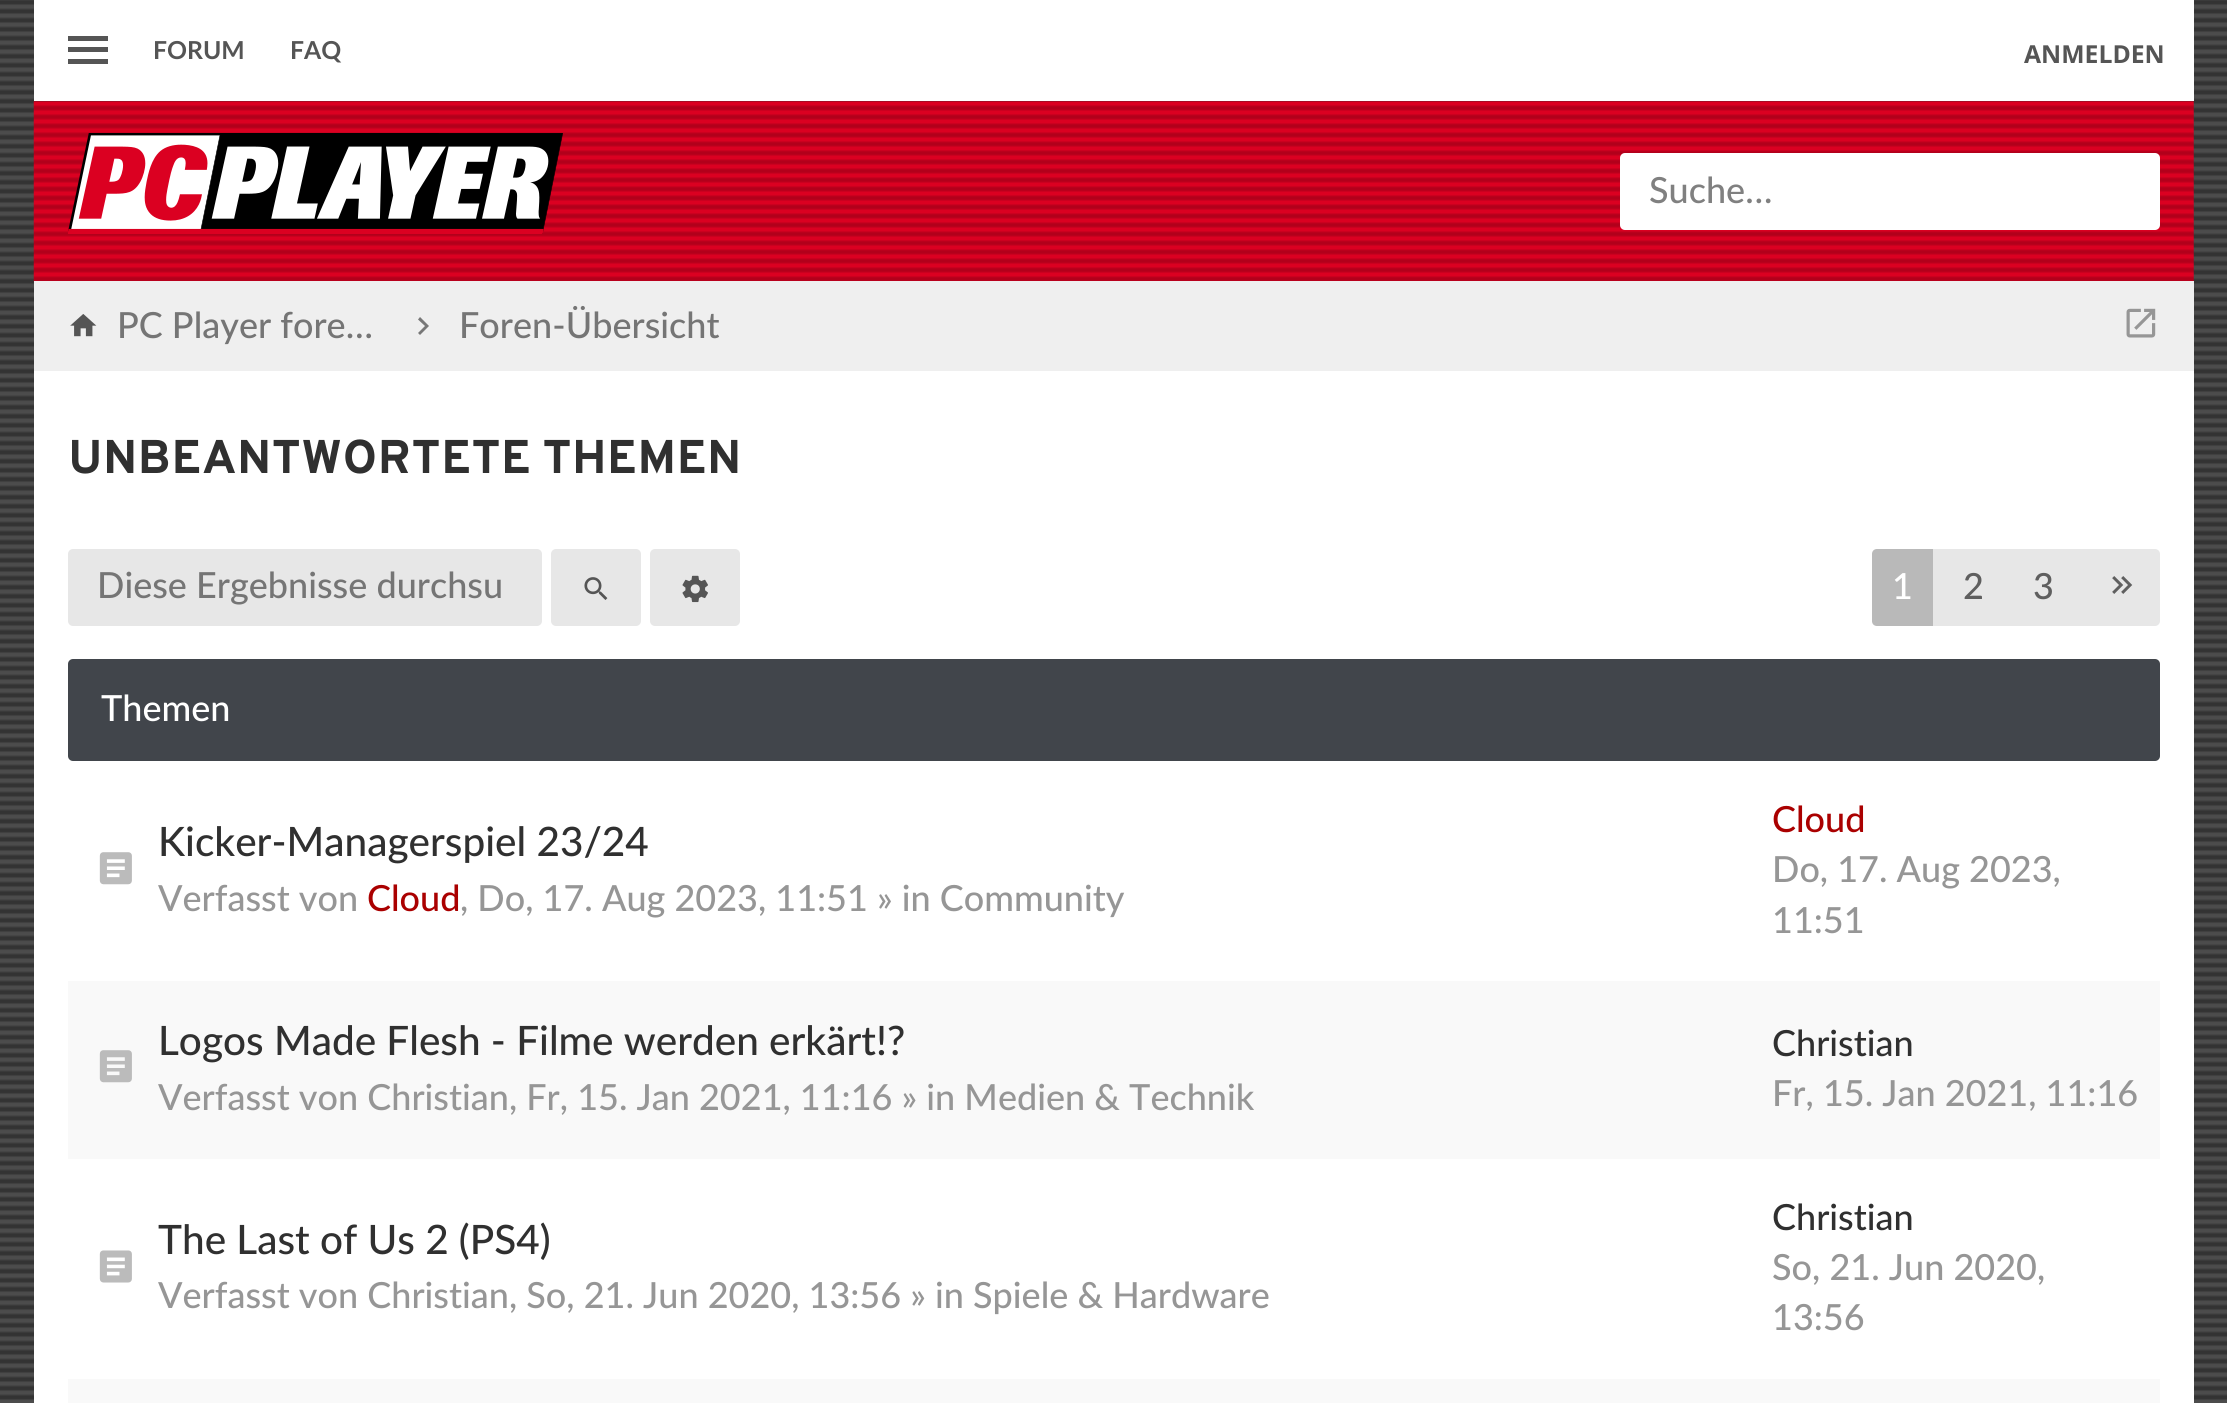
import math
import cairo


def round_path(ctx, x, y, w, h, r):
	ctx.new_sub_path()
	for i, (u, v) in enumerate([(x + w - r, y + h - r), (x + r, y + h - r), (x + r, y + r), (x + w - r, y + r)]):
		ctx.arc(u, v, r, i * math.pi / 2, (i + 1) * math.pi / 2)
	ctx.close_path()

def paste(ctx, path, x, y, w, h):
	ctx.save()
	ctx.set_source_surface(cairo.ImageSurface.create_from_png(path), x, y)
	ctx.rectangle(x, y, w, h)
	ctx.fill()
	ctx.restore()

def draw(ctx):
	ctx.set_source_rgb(1, 1, 1)
	ctx.paint()
	paste(ctx, 'media/1.png', 0, 0, 2227, 1403)
	ctx.set_source_rgb(1, 1, 1)
	ctx.rectangle(34, 0, 2160, 101)
	ctx.fill()
	ctx.set_source_rgb(0.333, 0.333, 0.333)
	ctx.rectangle(68, 36, 40, 5)
	ctx.rectangle(68, 47, 40, 5)
	ctx.rectangle(68, 59, 40, 5)
	ctx.fill()
	ctx.select_font_face('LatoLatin', cairo.FONT_SLANT_NORMAL, cairo.FONT_WEIGHT_BOLD)
	ctx.set_font_size(24.75)
	ctx.move_to(153, 59)
	ctx.show_text('FORUM')
	ctx.move_to(290, 59)
	ctx.show_text('FAQ')
	ctx.select_font_face('Open Sans', cairo.FONT_SLANT_NORMAL, cairo.FONT_WEIGHT_BOLD)
	ctx.move_to(2024, 63)
	ctx.show_text('ANMELDEN')
	paste(ctx, 'media/2.png', 33, 101, 2161, 181)
	paste(ctx, 'media/3.png', 68, 133, 495, 101)
	ctx.set_source_rgb(1, 1, 1)
	round_path(ctx, 1620, 153, 540, 77, 5)
	ctx.fill()
	ctx.select_font_face('LatoLatin Medium')
	ctx.set_font_size(36)
	ctx.set_source_rgb(0.502, 0.502, 0.502)
	ctx.move_to(1649, 203)
	ctx.show_text('Suche…')
	ctx.set_source_rgb(1, 1, 1)
	ctx.rectangle(34, 371, 2160, 1032)
	ctx.fill()
	ctx.set_source_rgb(0.937, 0.937, 0.937)
	ctx.rectangle(34, 281, 2160, 90)
	ctx.fill()
	paste(ctx, 'media/4.png', 70, 314, 27, 23)
	ctx.set_source_rgb(0.459, 0.459, 0.459)
	ctx.move_to(117, 338)
	ctx.show_text('PC Player fore…')
	ctx.set_source_rgb(0.467, 0.467, 0.467)
	ctx.new_path()
	ctx.move_to(418, 333)
	ctx.line_to(425, 326)
	ctx.line_to(418, 319.5)
	ctx.line_to(420, 317)
	ctx.line_to(429, 326)
	ctx.line_to(420, 335)
	ctx.close_path()
	ctx.fill()
	ctx.set_source_rgb(0.459, 0.459, 0.459)
	ctx.move_to(459, 338)
	ctx.show_text('Foren-Übersicht')
	paste(ctx, 'media/5.png', 2126, 308, 30, 30)
	ctx.select_font_face('Overpass', cairo.FONT_SLANT_NORMAL, cairo.FONT_WEIGHT_BOLD)
	ctx.set_font_size(47.25)
	ctx.set_source_rgb(0.188, 0.188, 0.188)
	ctx.move_to(68, 473)
	ctx.show_text('UNBEANTWORTETE THEMEN')
	ctx.set_source_rgb(0.906, 0.906, 0.906)
	round_path(ctx, 68, 549, 474, 77, 5)
	ctx.fill()
	ctx.select_font_face('LatoLatin Medium')
	ctx.set_font_size(36)
	ctx.set_source_rgb(0.459, 0.459, 0.459)
	ctx.move_to(97, 598)
	ctx.show_text('Diese Ergebnisse durchsu')
	ctx.set_source_rgb(0.906, 0.906, 0.906)
	round_path(ctx, 551, 549, 90, 77, 5)
	ctx.fill()
	paste(ctx, 'media/6.png', 584, 577, 24, 23)
	round_path(ctx, 650, 549, 90, 77, 5)
	ctx.fill()
	paste(ctx, 'media/7.png', 682, 575, 26, 28)
	round_path(ctx, 1872, 549, 288, 77, 5)
	ctx.fill()
	ctx.set_source_rgba(0, 0, 0, 0.2)
	ctx.new_path()
	ctx.move_to(1877, 549)
	ctx.line_to(1933, 549)
	ctx.line_to(1933, 626)
	ctx.line_to(1877, 626)
	ctx.curve_to(1874, 626, 1872, 624, 1872, 621)
	ctx.line_to(1872, 554)
	ctx.curve_to(1872, 551, 1874, 549, 1877, 549)
	ctx.close_path()
	ctx.fill()
	ctx.set_source_rgb(1, 1, 1)
	ctx.move_to(1892, 599)
	ctx.show_text('1')
	ctx.set_source_rgb(0.373, 0.373, 0.373)
	ctx.move_to(1963, 599)
	ctx.show_text('2')
	ctx.move_to(2033, 599)
	ctx.show_text('3')
	paste(ctx, 'media/8.png', 2112, 576, 21, 18)
	ctx.set_source_rgb(0.255, 0.271, 0.294)
	round_path(ctx, 68, 659, 2092, 102, 5)
	ctx.fill()
	ctx.set_source_rgb(1, 1, 1)
	ctx.move_to(101, 721)
	ctx.show_text('Themen')
	paste(ctx, 'media/9.png', 99, 852, 33, 33)
	ctx.set_font_size(40.5)
	ctx.set_source_rgb(0.188, 0.188, 0.188)
	ctx.move_to(158, 856)
	ctx.show_text('Kicker-Managerspiel 23/24')
	ctx.set_font_size(36)
	ctx.set_source_rgb(0.588, 0.588, 0.588)
	ctx.move_to(158, 911)
	ctx.show_text('Verfasst von')
	ctx.set_source_rgb(0.667, 0, 0)
	ctx.move_to(367, 911)
	ctx.show_text('Cloud')
	ctx.set_source_rgb(0.588, 0.588, 0.588)
	ctx.move_to(460, 911)
	ctx.show_text(', Do, 17. Aug 2023, 11:51 » in Community')
	ctx.set_source_rgb(0.667, 0, 0)
	ctx.move_to(1772, 832)
	ctx.show_text('Cloud')
	ctx.set_source_rgb(0.588, 0.588, 0.588)
	ctx.move_to(1772, 882)
	ctx.show_text('Do, 17. Aug 2023,')
	ctx.move_to(1772, 933)
	ctx.show_text('11:51')
	ctx.set_source_rgb(0.973, 0.973, 0.973)
	ctx.rectangle(68, 981, 2092, 178)
	ctx.fill()
	paste(ctx, 'media/10.png', 99, 1050, 33, 33)
	ctx.set_font_size(40.5)
	ctx.set_source_rgb(0.188, 0.188, 0.188)
	ctx.move_to(158, 1055)
	ctx.show_text('Logos Made Flesh - Filme werden erkärt!?')
	ctx.set_font_size(36)
	ctx.set_source_rgb(0.588, 0.588, 0.588)
	ctx.move_to(158, 1110)
	ctx.show_text('Verfasst von Christian, Fr, 15. Jan 2021, 11:16 » in Medien & Technik')
	ctx.set_source_rgb(0.188, 0.188, 0.188)
	ctx.move_to(1772, 1056)
	ctx.show_text('Christian')
	ctx.set_source_rgb(0.588, 0.588, 0.588)
	ctx.move_to(1772, 1106)
	ctx.show_text('Fr, 15. Jan 2021, 11:16')
	paste(ctx, 'media/11.png', 99, 1250, 33, 33)
	ctx.set_font_size(40.5)
	ctx.set_source_rgb(0.188, 0.188, 0.188)
	ctx.move_to(158, 1254)
	ctx.show_text('The Last of Us 2 (PS4)')
	ctx.set_font_size(36)
	ctx.set_source_rgb(0.588, 0.588, 0.588)
	ctx.move_to(158, 1308)
	ctx.show_text('Verfasst von Christian, So, 21. Jun 2020, 13:56 » in Spiele & Hardware')
	ctx.set_source_rgb(0.188, 0.188, 0.188)
	ctx.move_to(1772, 1230)
	ctx.show_text('Christian')
	ctx.set_source_rgb(0.588, 0.588, 0.588)
	ctx.move_to(1772, 1280)
	ctx.show_text('So, 21. Jun 2020,')
	ctx.move_to(1772, 1330)
	ctx.show_text('13:56')
	ctx.set_source_rgb(0.973, 0.973, 0.973)
	ctx.rectangle(68, 1379, 2092, 24)
	ctx.fill()


surface = cairo.ImageSurface(cairo.FORMAT_RGB24, 2227, 1403)
ctx = cairo.Context(surface)
options = cairo.FontOptions()
options.set_hint_metrics(cairo.HINT_METRICS_OFF)
options.set_hint_style(cairo.HINT_STYLE_NONE)
ctx.set_font_options(options)
ctx.set_miter_limit(4)
draw(ctx)
surface.write_to_png('image.png')
